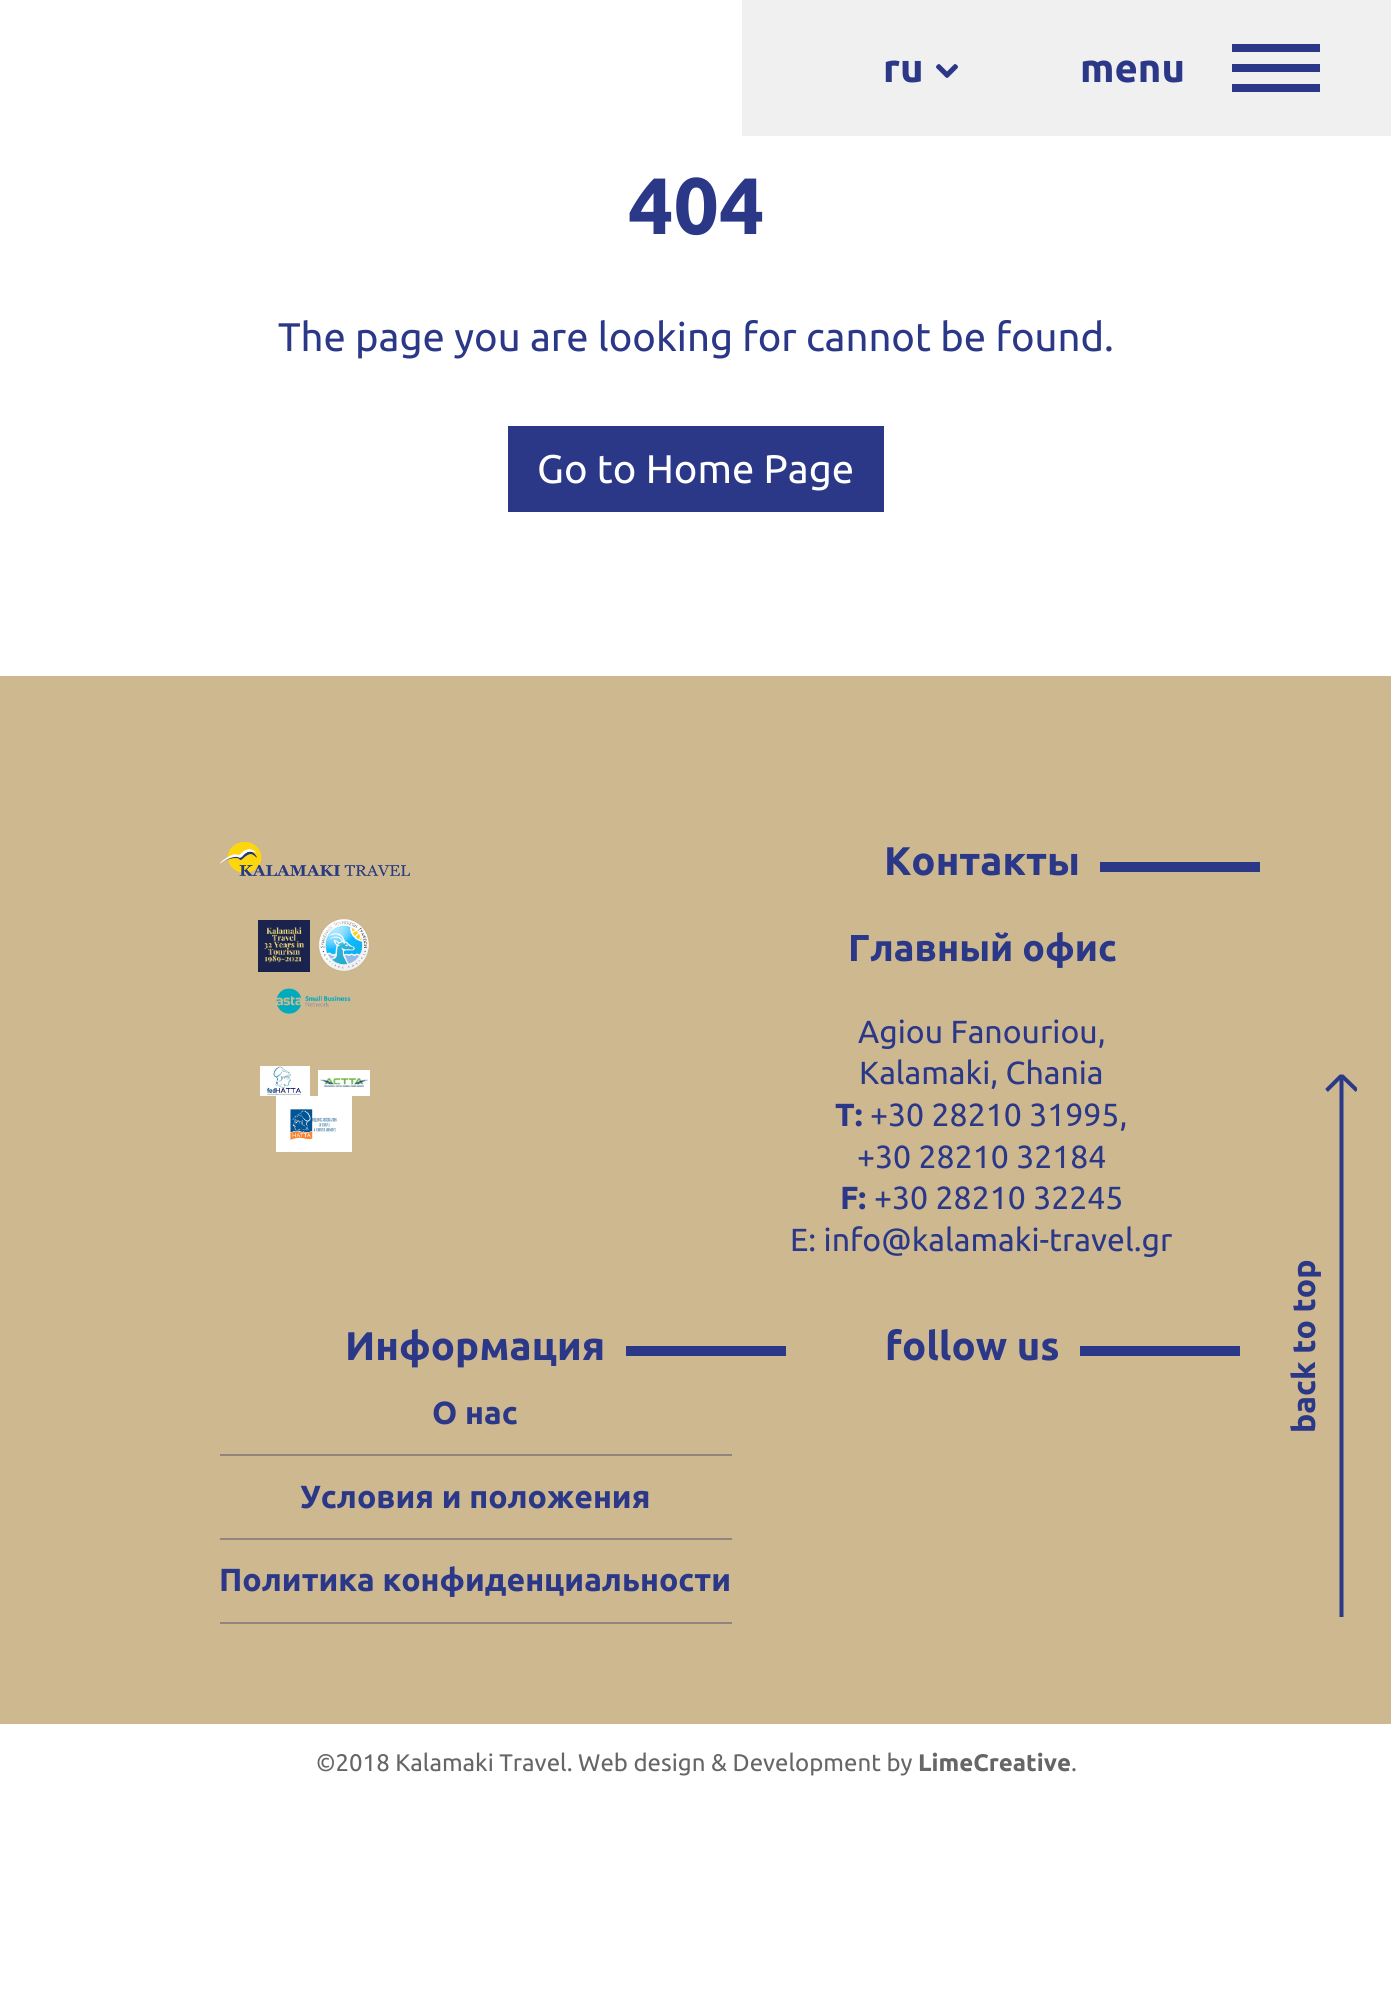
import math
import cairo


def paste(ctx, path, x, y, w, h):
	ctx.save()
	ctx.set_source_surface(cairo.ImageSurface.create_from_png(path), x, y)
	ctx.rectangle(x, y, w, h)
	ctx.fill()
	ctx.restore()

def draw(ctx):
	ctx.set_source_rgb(1, 1, 1)
	ctx.paint()
	ctx.set_source_rgb(0.941, 0.941, 0.941)
	ctx.rectangle(742, 0, 649, 136)
	ctx.fill()
	ctx.select_font_face('Ubuntu', cairo.FONT_SLANT_NORMAL, cairo.FONT_WEIGHT_BOLD)
	ctx.set_font_size(40)
	ctx.set_source_rgb(0.169, 0.22, 0.533)
	ctx.move_to(883, 82)
	ctx.show_text('ru')
	paste(ctx, 'media/1.png', 936, 64, 22, 14)
	ctx.move_to(1080, 82)
	ctx.show_text('menu')
	ctx.rectangle(1232, 44, 88, 8)
	ctx.rectangle(1232, 64, 88, 8)
	ctx.rectangle(1232, 84, 88, 8)
	ctx.fill()
	ctx.set_font_size(80)
	ctx.move_to(628, 234)
	ctx.show_text('404')
	ctx.select_font_face('Ubuntu')
	ctx.set_font_size(40)
	ctx.move_to(278, 351)
	ctx.show_text('The page you are looking for cannot be found.')
	ctx.rectangle(508, 426, 376, 86)
	ctx.fill()
	ctx.set_source_rgb(1, 1, 1)
	ctx.move_to(537, 483)
	ctx.show_text('Go to Home Page')
	ctx.set_source_rgb(0.808, 0.722, 0.565)
	ctx.rectangle(0, 676, 1391, 1048)
	ctx.fill()
	paste(ctx, 'media/2.png', 220, 842, 190, 34)
	paste(ctx, 'media/3.png', 258, 920, 52, 52)
	paste(ctx, 'media/4.png', 318, 919, 52, 53)
	paste(ctx, 'media/5.png', 276, 988, 75, 26)
	paste(ctx, 'media/6.png', 260, 1066, 50, 30)
	paste(ctx, 'media/7.png', 318, 1070, 52, 26)
	paste(ctx, 'media/8.png', 276, 1096, 76, 56)
	ctx.select_font_face('Ubuntu', cairo.FONT_SLANT_NORMAL, cairo.FONT_WEIGHT_BOLD)
	ctx.set_source_rgb(0.169, 0.22, 0.533)
	ctx.move_to(884, 875)
	ctx.show_text('Контакты')
	ctx.rectangle(1100, 862, 160, 10)
	ctx.fill()
	ctx.set_font_size(37.5)
	ctx.move_to(848, 961)
	ctx.show_text('Главный офис')
	ctx.select_font_face('Ubuntu')
	ctx.set_font_size(32)
	ctx.move_to(858, 1043)
	ctx.show_text('Agiou Fanouriou,')
	ctx.move_to(859, 1084)
	ctx.show_text('Kalamaki, Chania')
	ctx.select_font_face('Ubuntu', cairo.FONT_SLANT_NORMAL, cairo.FONT_WEIGHT_BOLD)
	ctx.move_to(835, 1126)
	ctx.show_text('T:')
	ctx.select_font_face('Ubuntu')
	ctx.move_to(870, 1126)
	ctx.show_text('+30 28210 31995,')
	ctx.move_to(857, 1168)
	ctx.show_text('+30 28210 32184')
	ctx.select_font_face('Ubuntu', cairo.FONT_SLANT_NORMAL, cairo.FONT_WEIGHT_BOLD)
	ctx.move_to(840, 1209)
	ctx.show_text('F:')
	ctx.select_font_face('Ubuntu')
	ctx.move_to(874, 1209)
	ctx.show_text('+30 28210 32245')
	ctx.move_to(790, 1251)
	ctx.show_text('E: info@kalamaki-travel.gr')
	ctx.select_font_face('Ubuntu', cairo.FONT_SLANT_NORMAL, cairo.FONT_WEIGHT_BOLD)
	ctx.set_font_size(40)
	ctx.move_to(345, 1360)
	ctx.show_text('Информация')
	ctx.rectangle(626, 1346, 160, 10)
	ctx.fill()
	ctx.set_source_rgb(0.573, 0.522, 0.502)
	ctx.rectangle(220, 1454, 512, 2)
	ctx.fill()
	ctx.set_font_size(32)
	ctx.set_source_rgb(0.169, 0.22, 0.533)
	ctx.move_to(432, 1424)
	ctx.show_text('О нас')
	ctx.set_source_rgb(0.573, 0.522, 0.502)
	ctx.rectangle(220, 1538, 512, 2)
	ctx.fill()
	ctx.set_source_rgb(0.169, 0.22, 0.533)
	ctx.move_to(300, 1508)
	ctx.show_text('Условия и положения')
	ctx.set_source_rgb(0.573, 0.522, 0.502)
	ctx.rectangle(220, 1622, 512, 2)
	ctx.fill()
	ctx.set_source_rgb(0.169, 0.22, 0.533)
	ctx.move_to(219, 1591)
	ctx.show_text('Политика конфиденциальности')
	ctx.set_font_size(40)
	ctx.move_to(885, 1360)
	ctx.show_text('follow us')
	ctx.rectangle(1080, 1346, 160, 10)
	ctx.fill()
	ctx.set_font_size(32)
	ctx.save()
	ctx.translate(1315, 1433)
	ctx.rotate(-90 * math.pi / 180)
	ctx.move_to(0, 0)
	ctx.show_text('back to top')
	ctx.restore()
	ctx.new_path()
	ctx.move_to(1341.5, 1077)
	ctx.line_to(1341.5, 1617)
	ctx.set_source_rgb(0.165, 0.227, 0.533)
	ctx.set_line_width(4)
	ctx.stroke()
	ctx.save()
	ctx.new_path()
	ctx.move_to(1325, 1618.5)
	ctx.line_to(1325, 1074.5)
	ctx.line_to(1357, 1074.5)
	ctx.line_to(1357, 1618.5)
	ctx.close_path()
	ctx.clip()
	ctx.new_path()
	ctx.move_to(1325.5, 1618.5)
	ctx.line_to(1325.5, 1074.5)
	ctx.line_to(1357.5, 1074.5)
	ctx.line_to(1357.5, 1618.5)
	ctx.close_path()
	ctx.clip()
	ctx.new_path()
	ctx.move_to(1326.5, 1090.5)
	ctx.line_to(1341.5, 1075.5)
	ctx.line_to(1357, 1090.5)
	ctx.stroke()
	ctx.restore()
	ctx.select_font_face('Ubuntu')
	ctx.set_font_size(24)
	ctx.set_source_rgb(0.4, 0.4, 0.4)
	ctx.move_to(316, 1771)
	ctx.show_text('©2018 Kalamaki Travel. Web design & Development by')
	ctx.select_font_face('Ubuntu', cairo.FONT_SLANT_NORMAL, cairo.FONT_WEIGHT_BOLD)
	ctx.move_to(918, 1771)
	ctx.show_text('LimeCreative')
	ctx.select_font_face('Ubuntu')
	ctx.move_to(1071, 1771)
	ctx.show_text('.')


surface = cairo.ImageSurface(cairo.FORMAT_RGB24, 1391, 1990)
ctx = cairo.Context(surface)
options = cairo.FontOptions()
options.set_hint_metrics(cairo.HINT_METRICS_OFF)
options.set_hint_style(cairo.HINT_STYLE_NONE)
ctx.set_font_options(options)
ctx.set_miter_limit(4)
draw(ctx)
surface.write_to_png('image.png')
